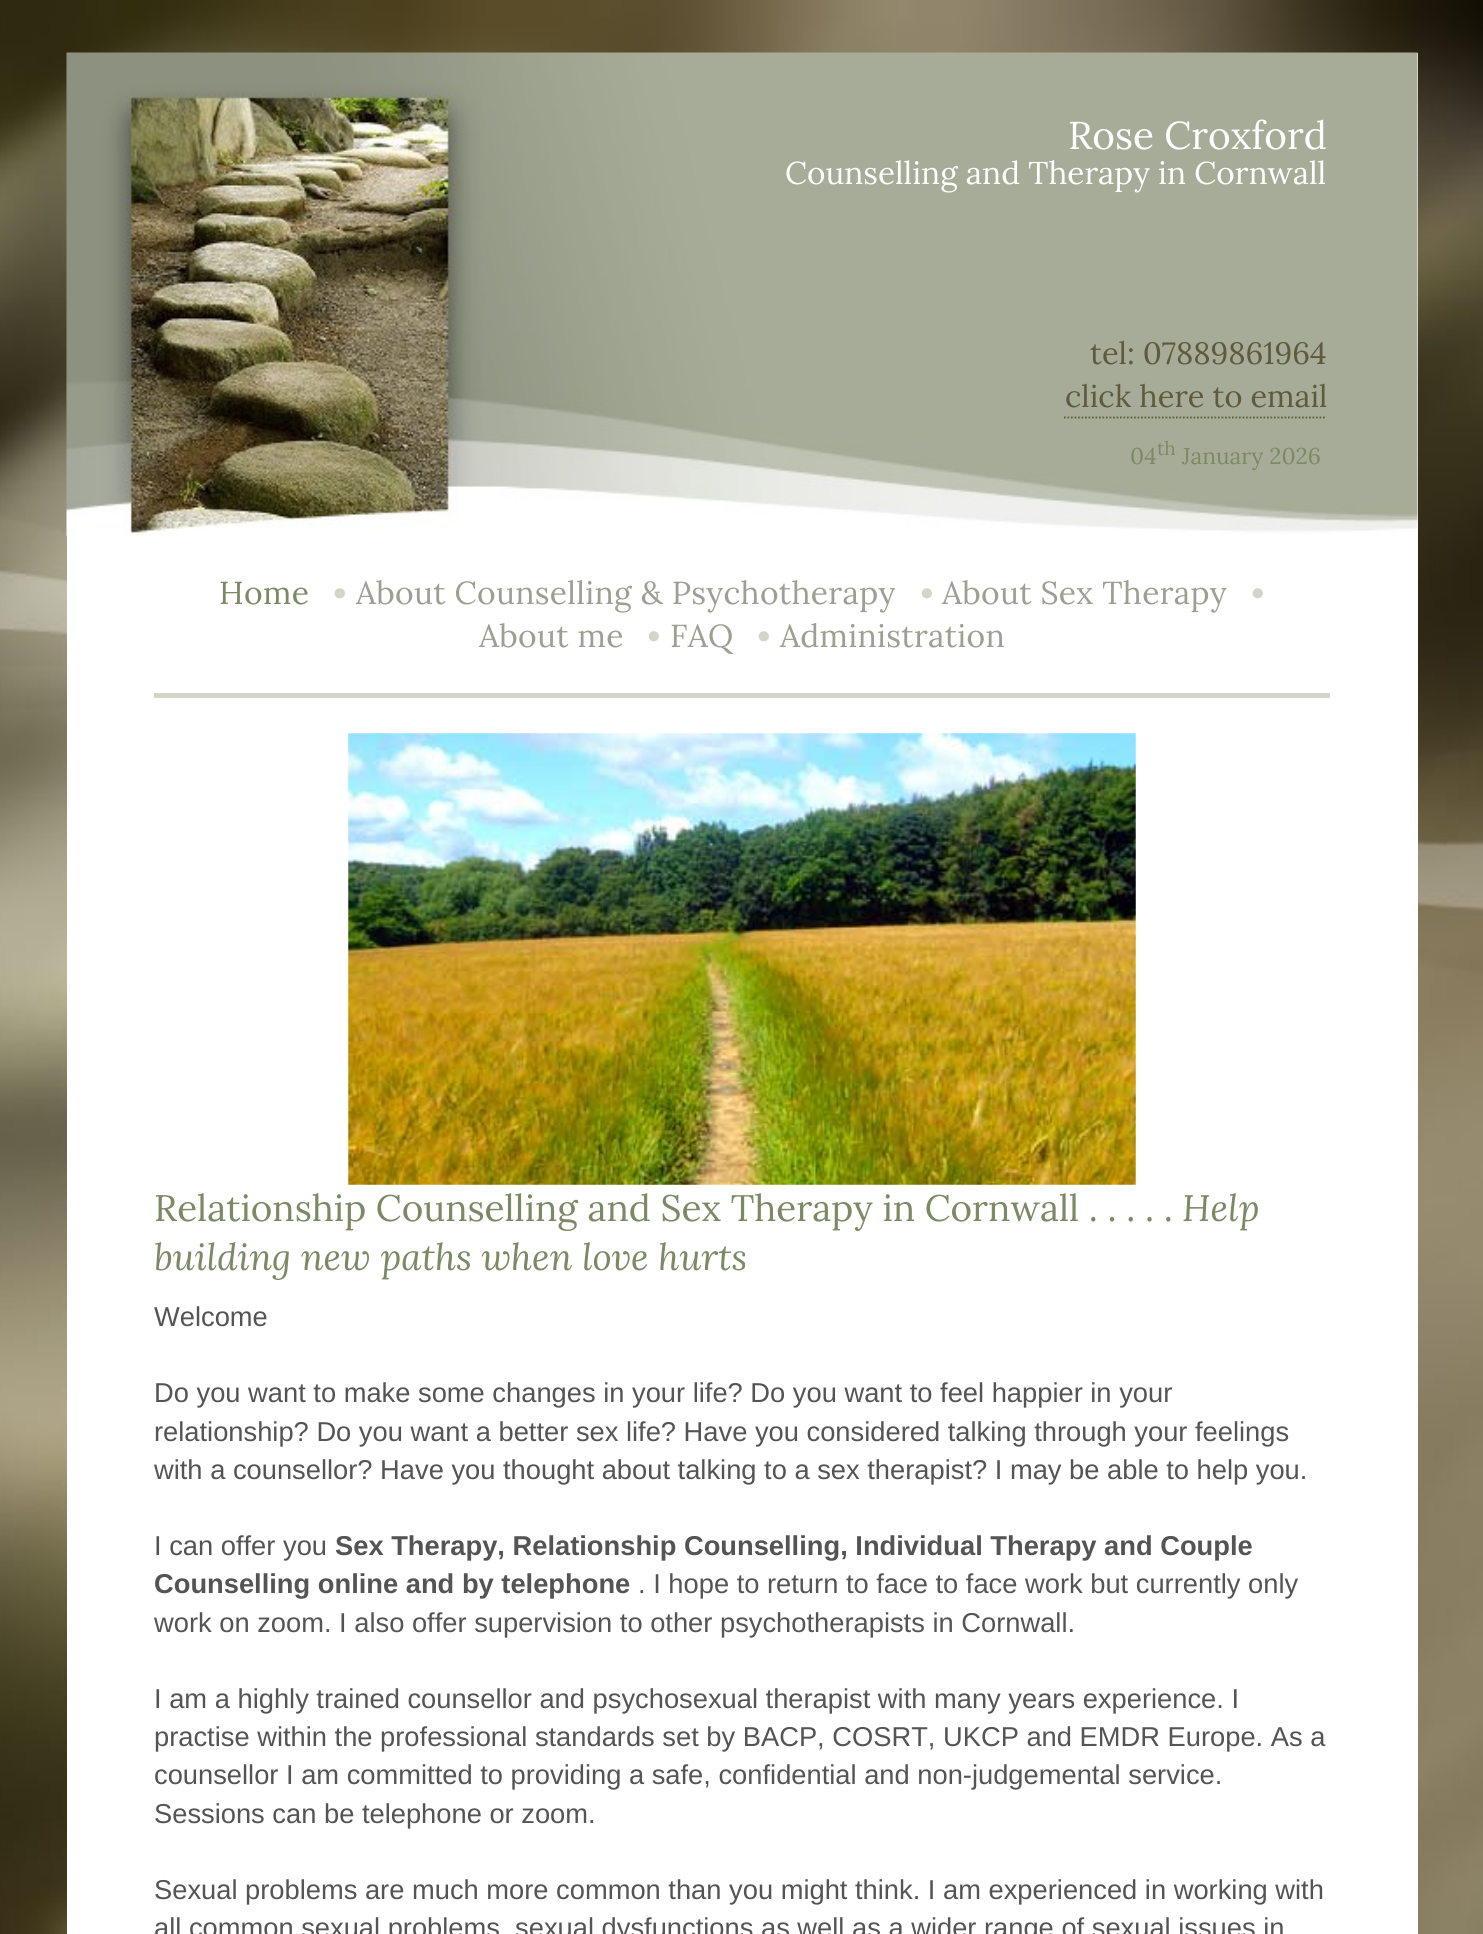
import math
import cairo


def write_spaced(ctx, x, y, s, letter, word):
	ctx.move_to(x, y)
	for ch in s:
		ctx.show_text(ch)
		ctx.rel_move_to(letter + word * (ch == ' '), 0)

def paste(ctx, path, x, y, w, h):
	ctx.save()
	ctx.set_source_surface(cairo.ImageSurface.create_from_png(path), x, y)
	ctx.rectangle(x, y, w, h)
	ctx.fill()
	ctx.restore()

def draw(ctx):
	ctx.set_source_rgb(1, 1, 1)
	ctx.paint()
	paste(ctx, 'media/1.png', 0, 0, 1483, 1934)
	ctx.set_source_rgb(1, 1, 1)
	ctx.rectangle(67, 53, 1351, 1881)
	ctx.fill()
	paste(ctx, 'media/2.png', 66, 52, 1352, 484)
	ctx.select_font_face('Lora')
	ctx.set_font_size(38.75)
	ctx.move_to(1068, 149)
	ctx.show_text('Rose Croxford')
	ctx.set_font_size(31.5)
	ctx.move_to(785, 184)
	ctx.show_text('Counselling and Therapy in Cornwall')
	ctx.set_font_size(30.75)
	ctx.set_source_rgb(0.365, 0.357, 0.231)
	ctx.move_to(1090, 364)
	ctx.show_text('tel: 07889861964')
	ctx.move_to(1065, 407)
	ctx.show_text('click here to email')
	ctx.new_path()
	ctx.move_to(1064, 417.5)
	ctx.line_to(1326.5, 417.5)
	ctx.set_line_width(1.8)
	ctx.set_dash([1.75, 1.75])
	ctx.stroke()
	ctx.set_font_size(22.75)
	ctx.set_source_rgb(0.482, 0.537, 0.392)
	ctx.move_to(1130, 464)
	ctx.show_text('04')
	ctx.set_font_size(19)
	ctx.move_to(1157, 455)
	ctx.show_text('th')
	ctx.set_font_size(22.75)
	ctx.move_to(1182, 464)
	ctx.show_text('January 2026')
	ctx.set_source_rgb(0.824, 0.835, 0.78)
	ctx.rectangle(154, 693, 1176, 5)
	ctx.fill()
	ctx.set_font_size(31.8)
	ctx.set_source_rgb(0.482, 0.537, 0.392)
	write_spaced(ctx, 219, 604, 'Home', 0.3, 0)
	ctx.set_font_size(34)
	ctx.set_source_rgb(0.824, 0.835, 0.78)
	ctx.move_to(333, 606)
	ctx.show_text('•')
	ctx.set_font_size(31.8)
	ctx.set_source_rgb(0.612, 0.624, 0.569)
	write_spaced(ctx, 356, 604, 'About Counselling & Psychotherapy', 0.3, 0)
	ctx.set_font_size(34)
	ctx.set_source_rgb(0.824, 0.835, 0.78)
	ctx.move_to(920, 606)
	ctx.show_text('•')
	ctx.set_font_size(31.8)
	ctx.set_source_rgb(0.612, 0.624, 0.569)
	write_spaced(ctx, 942, 604, 'About Sex Therapy', 0.3, 0)
	ctx.set_font_size(34)
	ctx.set_source_rgb(0.824, 0.835, 0.78)
	ctx.move_to(1251, 606)
	ctx.show_text('•')
	ctx.set_font_size(31.8)
	ctx.set_source_rgb(0.612, 0.624, 0.569)
	write_spaced(ctx, 479, 647, 'About me', 0.3, 0)
	ctx.set_font_size(34)
	ctx.set_source_rgb(0.824, 0.835, 0.78)
	ctx.move_to(647, 649)
	ctx.show_text('•')
	ctx.set_font_size(31.8)
	ctx.set_source_rgb(0.612, 0.624, 0.569)
	write_spaced(ctx, 670, 647, 'FAQ', 0.3, 0)
	ctx.set_font_size(34)
	ctx.set_source_rgb(0.824, 0.835, 0.78)
	ctx.move_to(757, 649)
	ctx.show_text('•')
	ctx.set_font_size(31.8)
	ctx.set_source_rgb(0.612, 0.624, 0.569)
	write_spaced(ctx, 780, 647, 'Administration', 0.3, 0)
	paste(ctx, 'media/3.png', 348, 733, 788, 452)
	ctx.set_font_size(36.85)
	ctx.set_source_rgb(0.482, 0.537, 0.392)
	ctx.move_to(154, 1221)
	ctx.show_text('Relationship Counselling and Sex Therapy in Cornwall . . . . .')
	ctx.select_font_face('Lora', cairo.FONT_SLANT_ITALIC)
	ctx.move_to(1182, 1221)
	ctx.show_text('Help')
	ctx.move_to(154, 1270)
	ctx.show_text('building new paths when love hurts')
	ctx.select_font_face('Liberation Sans')
	ctx.set_font_size(27.3)
	ctx.set_source_rgb(0.329, 0.329, 0.329)
	for x, y, s in [
		(154, 1326, 'Welcome'),
		(154, 1402, 'Do you want to make some changes in your life? Do you want to feel happier in your'),
		(154, 1441, 'relationship? Do you want a better sex life? Have you considered talking through your feelings'),
		(154, 1479, 'with a counsellor? Have you thought about talking to a sex therapist? I may be able to help you.'),
		(154, 1555, 'I can offer you'),
	]:
		ctx.move_to(x, y)
		ctx.show_text(s)
	ctx.select_font_face('Liberation Sans', cairo.FONT_SLANT_NORMAL, cairo.FONT_WEIGHT_BOLD)
	ctx.move_to(335, 1555)
	ctx.show_text('Sex Therapy, Relationship Counselling, Individual Therapy and Couple')
	ctx.move_to(154, 1593)
	ctx.show_text('Counselling online and by telephone')
	ctx.select_font_face('Liberation Sans')
	for x, y, s in [
		(638, 1593, '. I hope to return to face to face work but currently only'),
		(154, 1632, 'work on zoom. I also offer supervision to other psychotherapists in Cornwall.'),
		(154, 1708, 'I am a highly trained counsellor and psychosexual therapist with many years experience. I'),
		(154, 1746, 'practise within the professional standards set by BACP, COSRT, UKCP and EMDR Europe. As a'),
		(154, 1784, 'counsellor I am committed to providing a safe, confidential and non-judgemental service.'),
		(154, 1823, 'Sessions can be telephone or zoom.'),
		(154, 1899, 'Sexual problems are much more common than you might think. I am experienced in working with'),
		(154, 1937, 'all common sexual problems, sexual dysfunctions as well as a wider range of sexual issues in'),
	]:
		ctx.move_to(x, y)
		ctx.show_text(s)


surface = cairo.ImageSurface(cairo.FORMAT_RGB24, 1483, 1934)
ctx = cairo.Context(surface)
options = cairo.FontOptions()
options.set_hint_metrics(cairo.HINT_METRICS_OFF)
options.set_hint_style(cairo.HINT_STYLE_NONE)
ctx.set_font_options(options)
ctx.set_miter_limit(4)
draw(ctx)
surface.write_to_png('image.png')
